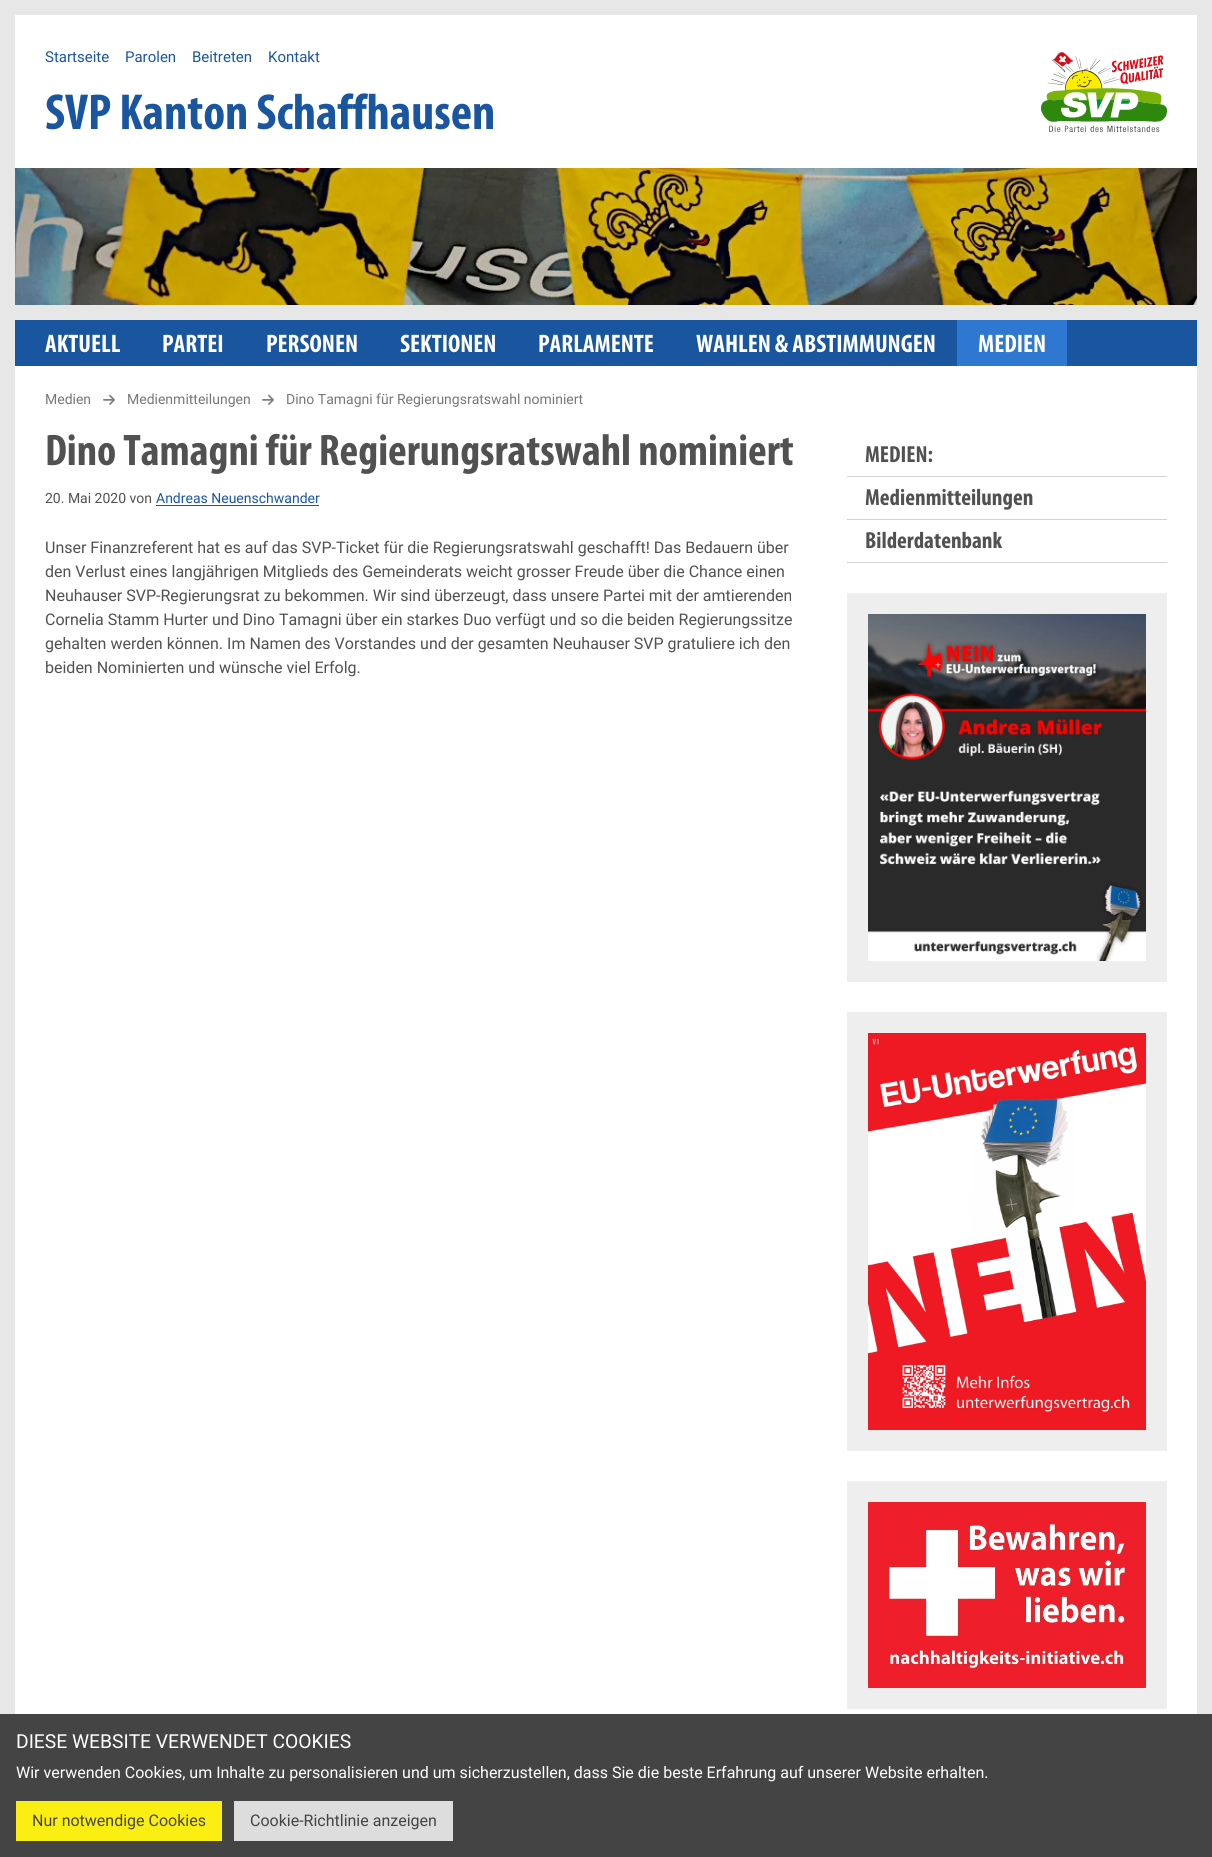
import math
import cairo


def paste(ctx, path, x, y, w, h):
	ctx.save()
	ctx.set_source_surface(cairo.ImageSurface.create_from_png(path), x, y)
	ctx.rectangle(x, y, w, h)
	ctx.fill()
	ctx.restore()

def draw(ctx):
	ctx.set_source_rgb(0.906, 0.906, 0.906)
	ctx.paint()
	ctx.set_source_rgb(1, 1, 1)
	ctx.rectangle(15, 15, 1182, 153)
	ctx.fill()
	ctx.select_font_face('Roboto')
	ctx.set_font_size(15)
	ctx.set_source_rgb(0.102, 0.337, 0.627)
	for x, y, s in [
		(45, 62, 'Startseite'),
		(125, 62, 'Parolen'),
		(192, 62, 'Beitreten'),
		(268, 62, 'Kontakt'),
	]:
		ctx.move_to(x, y)
		ctx.show_text(s)
	ctx.select_font_face('Myriad', cairo.FONT_SLANT_NORMAL, cairo.FONT_WEIGHT_BOLD)
	ctx.set_font_size(48)
	ctx.move_to(45, 129)
	ctx.show_text('SVP Kanton Schaffhausen')
	paste(ctx, 'media/1.png', 1041, 52, 126, 80)
	paste(ctx, 'media/2.png', 15, 168, 1182, 137)
	ctx.rectangle(15, 320, 1182, 46)
	ctx.fill()
	ctx.set_font_size(24)
	ctx.set_source_rgb(1, 1, 1)
	for x, y, s in [
		(45, 352, 'AKTUELL'),
		(162, 352, 'PARTEI'),
		(266, 352, 'PERSONEN'),
		(400, 352, 'SEKTIONEN'),
		(538, 352, 'PARLAMENTE'),
		(696, 352, 'WAHLEN & ABSTIMMUNGEN'),
	]:
		ctx.move_to(x, y)
		ctx.show_text(s)
	ctx.set_source_rgb(0.184, 0.471, 0.824)
	ctx.rectangle(957, 320, 110, 46)
	ctx.fill()
	ctx.set_source_rgb(1, 1, 1)
	ctx.move_to(978, 352)
	ctx.show_text('MEDIEN')
	ctx.set_source_rgb(0.267, 0.267, 0.267)
	ctx.rectangle(0, 1714, 1212, 143)
	ctx.fill()
	ctx.select_font_face('Roboto')
	ctx.set_font_size(19.25)
	ctx.set_source_rgb(1, 1, 1)
	ctx.move_to(16, 1748)
	ctx.show_text('DIESE WEBSITE VERWENDET COOKIES')
	ctx.set_font_size(16)
	ctx.move_to(16, 1778)
	ctx.show_text('Wir verwenden Cookies, um Inhalte zu personalisieren und um sicherzustellen, dass Sie die beste Erfahrung auf unserer Website erhalten.')
	ctx.set_source_rgb(0.984, 0.933, 0.071)
	ctx.rectangle(16, 1801, 206, 40)
	ctx.fill()
	ctx.set_source_rgb(0.267, 0.267, 0.267)
	ctx.move_to(32, 1826)
	ctx.show_text('Nur notwendige Cookies')
	ctx.set_source_rgb(0.867, 0.867, 0.867)
	ctx.rectangle(234, 1801, 219, 40)
	ctx.fill()
	ctx.set_source_rgb(0.267, 0.267, 0.267)
	ctx.move_to(250, 1826)
	ctx.show_text('Cookie-Richtlinie anzeigen')
	ctx.set_source_rgb(1, 1, 1)
	ctx.rectangle(15, 366, 1182, 1348)
	ctx.fill()
	ctx.set_font_size(14)
	ctx.set_source_rgb(0.467, 0.467, 0.467)
	ctx.move_to(45, 404)
	ctx.show_text('Medien')
	paste(ctx, 'media/3.png', 103, 394, 12, 11)
	ctx.move_to(127, 404)
	ctx.show_text('Medienmitteilungen')
	paste(ctx, 'media/3.png', 262, 394, 12, 11)
	ctx.move_to(286, 404)
	ctx.show_text('Dino Tamagni für Regierungsratswahl nominiert')
	ctx.select_font_face('Myriad', cairo.FONT_SLANT_NORMAL, cairo.FONT_WEIGHT_BOLD)
	ctx.set_font_size(42)
	ctx.set_source_rgb(0.318, 0.318, 0.318)
	ctx.move_to(45, 465)
	ctx.show_text('Dino Tamagni für Regierungsratswahl nominiert')
	ctx.select_font_face('Roboto')
	ctx.set_font_size(14)
	ctx.move_to(45, 503)
	ctx.show_text('20. Mai 2020 von')
	ctx.set_source_rgb(0.102, 0.337, 0.627)
	ctx.move_to(156, 503)
	ctx.show_text('Andreas Neuenschwander')
	ctx.rectangle(156, 505, 163, 1)
	ctx.fill()
	ctx.set_font_size(16)
	ctx.set_source_rgb(0.318, 0.318, 0.318)
	for x, y, s in [
		(45, 553, 'Unser Finanzreferent hat es auf das SVP-Ticket für die Regierungsratswahl geschafft! Das Bedauern über'),
		(45, 577, 'den Verlust eines langjährigen Mitglieds des Gemeinderats weicht grosser Freude über die Chance einen'),
		(45, 601, 'Neuhauser SVP-Regierungsrat zu bekommen. Wir sind überzeugt, dass unsere Partei mit der amtierenden'),
		(45, 625, 'Cornelia Stamm Hurter und Dino Tamagni über ein starkes Duo verfügt und so die beiden Regierungssitze'),
		(45, 649, 'gehalten werden können. Im Namen des Vorstandes und der gesamten Neuhauser SVP gratuliere ich den'),
		(45, 673, 'beiden Nominierten und wünsche viel Erfolg.'),
	]:
		ctx.move_to(x, y)
		ctx.show_text(s)
	ctx.set_source_rgb(0.827, 0.827, 0.827)
	ctx.rectangle(847, 476, 320, 1)
	ctx.fill()
	ctx.select_font_face('Myriad', cairo.FONT_SLANT_NORMAL, cairo.FONT_WEIGHT_BOLD)
	ctx.set_font_size(22)
	ctx.set_source_rgb(0.318, 0.318, 0.318)
	ctx.move_to(865, 462)
	ctx.show_text('MEDIEN:')
	ctx.set_source_rgb(0.827, 0.827, 0.827)
	ctx.rectangle(847, 519, 320, 1)
	ctx.fill()
	ctx.set_source_rgb(0.318, 0.318, 0.318)
	ctx.move_to(865, 505)
	ctx.show_text('Medienmitteilungen')
	ctx.set_source_rgb(0.827, 0.827, 0.827)
	ctx.rectangle(847, 562, 320, 1)
	ctx.fill()
	ctx.set_source_rgb(0.318, 0.318, 0.318)
	ctx.move_to(865, 548)
	ctx.show_text('Bilderdatenbank')
	ctx.set_source_rgb(0.933, 0.933, 0.933)
	ctx.rectangle(847, 593, 320, 389)
	ctx.fill()
	paste(ctx, 'media/4.png', 868, 614, 278, 347)
	ctx.rectangle(847, 1012, 320, 439)
	ctx.fill()
	paste(ctx, 'media/5.png', 868, 1033, 278, 397)
	ctx.rectangle(847, 1481, 320, 228)
	ctx.fill()
	paste(ctx, 'media/6.png', 868, 1502, 278, 186)


surface = cairo.ImageSurface(cairo.FORMAT_RGB24, 1212, 1857)
ctx = cairo.Context(surface)
options = cairo.FontOptions()
options.set_hint_metrics(cairo.HINT_METRICS_OFF)
options.set_hint_style(cairo.HINT_STYLE_NONE)
ctx.set_font_options(options)
ctx.set_miter_limit(4)
draw(ctx)
surface.write_to_png('image.png')
